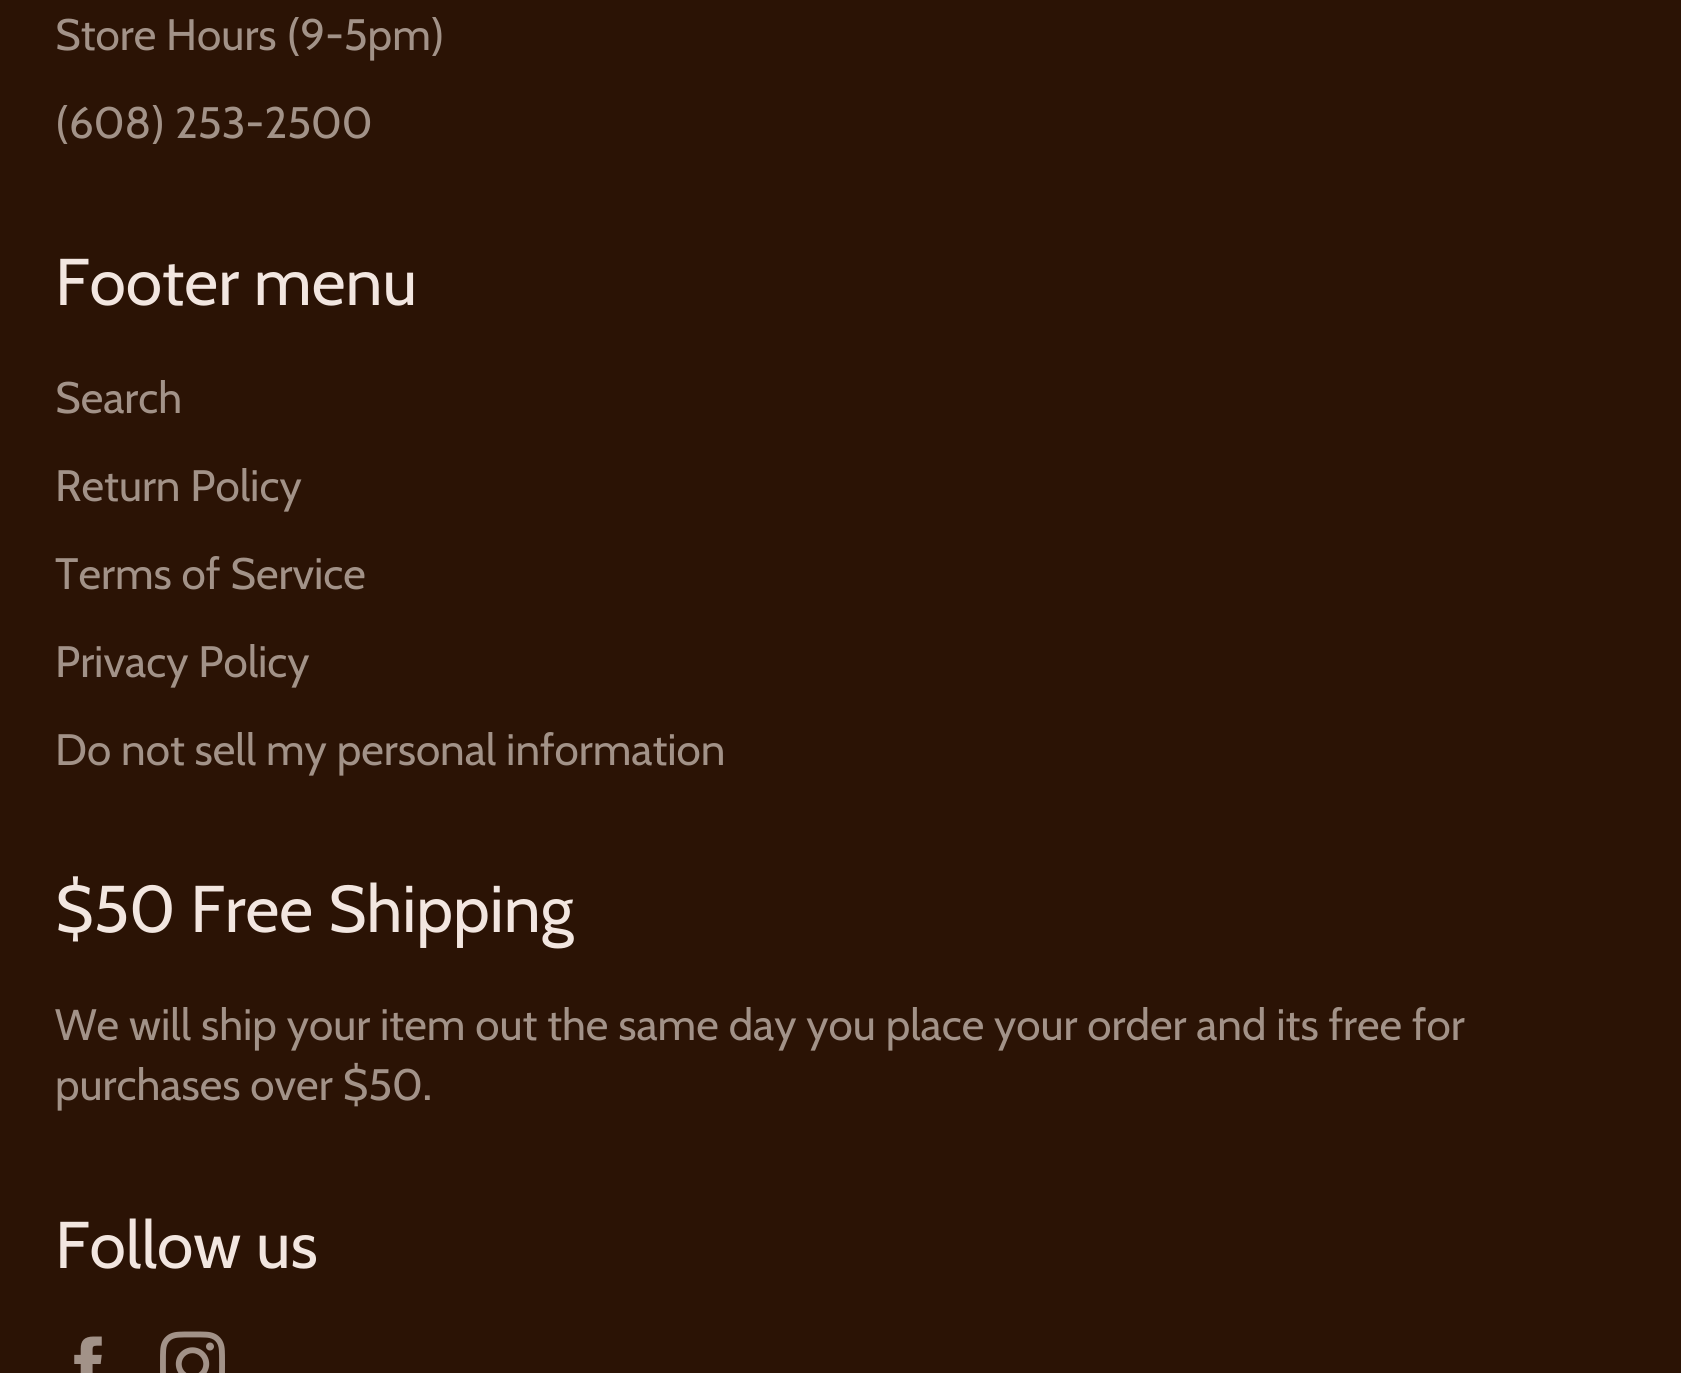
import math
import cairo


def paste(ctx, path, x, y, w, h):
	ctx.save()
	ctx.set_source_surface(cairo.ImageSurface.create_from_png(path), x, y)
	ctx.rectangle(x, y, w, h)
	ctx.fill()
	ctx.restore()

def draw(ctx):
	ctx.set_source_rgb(0.169, 0.075, 0.02)
	ctx.paint()
	ctx.select_font_face('Cabin')
	ctx.set_font_size(44)
	ctx.set_source_rgb(0.635, 0.573, 0.533)
	ctx.move_to(55, 50)
	ctx.show_text('Store Hours (9-5pm)')
	ctx.move_to(55, 138)
	ctx.show_text('(608) 253-2500')
	ctx.set_font_size(66)
	ctx.set_source_rgb(0.949, 0.902, 0.878)
	ctx.move_to(55, 305)
	ctx.show_text('Footer menu')
	ctx.set_font_size(44)
	ctx.set_source_rgb(0.635, 0.573, 0.533)
	for x, y, s in [
		(55, 413, 'Search'),
		(55, 501, 'Return Policy'),
		(55, 589, 'Terms of Service'),
		(55, 677, 'Privacy Policy'),
		(55, 765, 'Do not sell my personal information'),
	]:
		ctx.move_to(x, y)
		ctx.show_text(s)
	ctx.set_font_size(66)
	ctx.set_source_rgb(0.949, 0.902, 0.878)
	ctx.move_to(55, 932)
	ctx.show_text('$50 Free Shipping')
	ctx.set_font_size(44)
	ctx.set_source_rgb(0.635, 0.573, 0.533)
	ctx.move_to(55, 1040)
	ctx.show_text('We will ship your item out the same day you place your order and its free for')
	ctx.move_to(55, 1100)
	ctx.show_text('purchases over $50.')
	ctx.set_font_size(66)
	ctx.set_source_rgb(0.949, 0.902, 0.878)
	ctx.move_to(55, 1268)
	ctx.show_text('Follow us')
	paste(ctx, 'media/1.png', 74, 1336, 28, 37)
	paste(ctx, 'media/2.png', 160, 1331, 65, 42)


surface = cairo.ImageSurface(cairo.FORMAT_RGB24, 1681, 1373)
ctx = cairo.Context(surface)
options = cairo.FontOptions()
options.set_hint_metrics(cairo.HINT_METRICS_OFF)
options.set_hint_style(cairo.HINT_STYLE_NONE)
ctx.set_font_options(options)
ctx.set_miter_limit(4)
draw(ctx)
surface.write_to_png('image.png')
